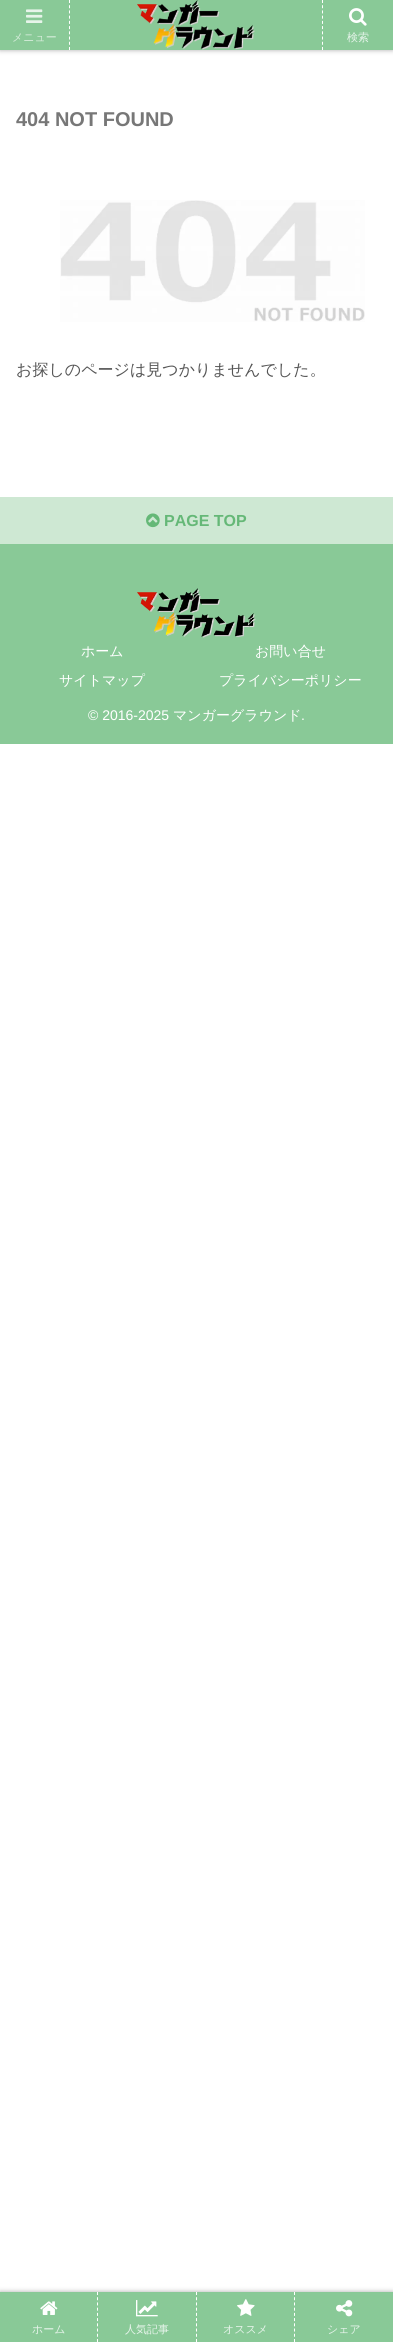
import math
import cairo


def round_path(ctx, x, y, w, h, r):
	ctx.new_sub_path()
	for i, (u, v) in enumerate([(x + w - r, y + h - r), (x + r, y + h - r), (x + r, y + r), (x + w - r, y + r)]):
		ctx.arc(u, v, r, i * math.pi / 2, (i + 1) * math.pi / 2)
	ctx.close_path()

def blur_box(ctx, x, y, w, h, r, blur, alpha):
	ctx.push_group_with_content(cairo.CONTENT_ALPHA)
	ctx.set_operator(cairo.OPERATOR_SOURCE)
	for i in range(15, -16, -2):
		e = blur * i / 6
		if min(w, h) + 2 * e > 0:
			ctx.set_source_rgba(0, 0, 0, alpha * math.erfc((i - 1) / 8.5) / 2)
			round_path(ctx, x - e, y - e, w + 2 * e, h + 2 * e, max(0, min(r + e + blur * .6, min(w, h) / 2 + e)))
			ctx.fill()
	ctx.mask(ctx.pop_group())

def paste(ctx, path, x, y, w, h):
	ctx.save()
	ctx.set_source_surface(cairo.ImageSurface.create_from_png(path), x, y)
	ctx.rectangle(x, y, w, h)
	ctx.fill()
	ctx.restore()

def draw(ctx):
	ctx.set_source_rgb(1, 1, 1)
	ctx.paint()
	ctx.set_source_rgb(0.663, 0.663, 0.663)
	blur_box(ctx, 0, 0, 393, 50, 0, 2.5, 1)
	ctx.set_source_rgb(0.537, 0.788, 0.592)
	ctx.rectangle(0, 0, 393, 50)
	ctx.fill()
	ctx.new_path()
	ctx.move_to(69.5, 0)
	ctx.line_to(69.5, 50)
	ctx.set_source_rgb(1, 1, 1)
	ctx.set_line_width(1)
	ctx.set_dash([3, 2.22])
	ctx.stroke()
	paste(ctx, 'media/1.png', 26, 9, 17, 14)
	ctx.select_font_face('WenQuanYi Zen Hei Medium')
	ctx.set_font_size(11)
	ctx.set_source_rgb(0.835, 0.925, 0.855)
	ctx.move_to(12, 41)
	ctx.show_text('メニュー')
	ctx.new_path()
	ctx.move_to(322.5, 0)
	ctx.line_to(322.5, 50)
	ctx.set_source_rgb(1, 1, 1)
	ctx.stroke()
	paste(ctx, 'media/2.png', 137, 0, 118, 50)
	paste(ctx, 'media/3.png', 349, 8, 18, 18)
	ctx.set_source_rgb(0.906, 0.957, 0.918)
	ctx.move_to(347, 41)
	ctx.show_text('検索')
	ctx.select_font_face('Liberation Sans', cairo.FONT_SLANT_NORMAL, cairo.FONT_WEIGHT_BOLD)
	ctx.set_font_size(20)
	ctx.set_source_rgb(0.467, 0.467, 0.467)
	ctx.move_to(16, 126)
	ctx.show_text('404 NOT FOUND')
	paste(ctx, 'media/4.png', 60, 200, 305, 122)
	ctx.select_font_face('WenQuanYi Zen Hei Medium')
	ctx.set_font_size(16)
	ctx.set_source_rgb(0.333, 0.333, 0.333)
	ctx.move_to(16, 375)
	ctx.show_text('お探しのページは見つかりませんでした。')
	ctx.set_source_rgb(0.808, 0.91, 0.827)
	ctx.rectangle(0, 497, 393, 47)
	ctx.fill()
	paste(ctx, 'media/5.png', 146, 513, 14, 15)
	ctx.select_font_face('Liberation Sans', cairo.FONT_SLANT_NORMAL, cairo.FONT_WEIGHT_BOLD)
	ctx.set_source_rgb(0.396, 0.722, 0.467)
	ctx.move_to(164, 526)
	ctx.show_text('PAGE TOP')
	ctx.set_source_rgb(0.537, 0.788, 0.592)
	ctx.rectangle(0, 544, 393, 200)
	ctx.fill()
	paste(ctx, 'media/6.png', 137, 588, 119, 50)
	ctx.select_font_face('WenQuanYi Zen Hei Medium')
	ctx.set_font_size(14)
	ctx.set_source_rgb(1, 1, 1)
	for x, y, s in [
		(81, 656, 'ホーム'),
		(255, 656, 'お問い合せ'),
		(59, 685, 'サイトマップ'),
		(219, 685, 'プライバシーポリシー'),
	]:
		ctx.move_to(x, y)
		ctx.show_text(s)
	ctx.select_font_face('Liberation Sans')
	ctx.move_to(88, 720)
	ctx.show_text('© 2016-2025')
	ctx.select_font_face('WenQuanYi Zen Hei Medium')
	ctx.move_to(173, 720)
	ctx.show_text('マンガーグラウンド')
	ctx.select_font_face('Liberation Sans')
	ctx.move_to(301, 720)
	ctx.show_text('.')
	ctx.set_source_rgb(0.663, 0.663, 0.663)
	blur_box(ctx, 0, 2292, 393, 50, 0, 2.5, 1)
	ctx.set_source_rgb(0.537, 0.788, 0.592)
	ctx.rectangle(0, 2292, 393, 50)
	ctx.fill()
	ctx.new_path()
	ctx.move_to(97.5, 2292)
	ctx.line_to(97.5, 2342)
	ctx.set_source_rgb(1, 1, 1)
	ctx.stroke()
	paste(ctx, 'media/7.png', 40, 2301, 18, 14)
	ctx.select_font_face('WenQuanYi Zen Hei Medium')
	ctx.set_font_size(11)
	ctx.set_source_rgb(0.906, 0.957, 0.918)
	ctx.move_to(32, 2333)
	ctx.show_text('ホーム')
	ctx.new_path()
	ctx.move_to(196.5, 2292)
	ctx.line_to(196.5, 2342)
	ctx.set_source_rgb(1, 1, 1)
	ctx.stroke()
	paste(ctx, 'media/8.png', 136, 2300, 22, 17)
	ctx.set_source_rgb(0.906, 0.957, 0.918)
	ctx.move_to(125, 2333)
	ctx.show_text('人気記事')
	ctx.new_path()
	ctx.move_to(294.5, 2292)
	ctx.line_to(294.5, 2342)
	ctx.set_source_rgb(1, 1, 1)
	ctx.stroke()
	paste(ctx, 'media/9.png', 237, 2299, 18, 17)
	ctx.set_source_rgb(0.906, 0.957, 0.918)
	ctx.move_to(223, 2333)
	ctx.show_text('オススメ')
	paste(ctx, 'media/10.png', 336, 2300, 17, 17)
	ctx.move_to(327, 2333)
	ctx.show_text('シェア')


surface = cairo.ImageSurface(cairo.FORMAT_RGB24, 393, 2342)
ctx = cairo.Context(surface)
options = cairo.FontOptions()
options.set_hint_metrics(cairo.HINT_METRICS_OFF)
options.set_hint_style(cairo.HINT_STYLE_NONE)
ctx.set_font_options(options)
ctx.set_miter_limit(4)
draw(ctx)
surface.write_to_png('image.png')
